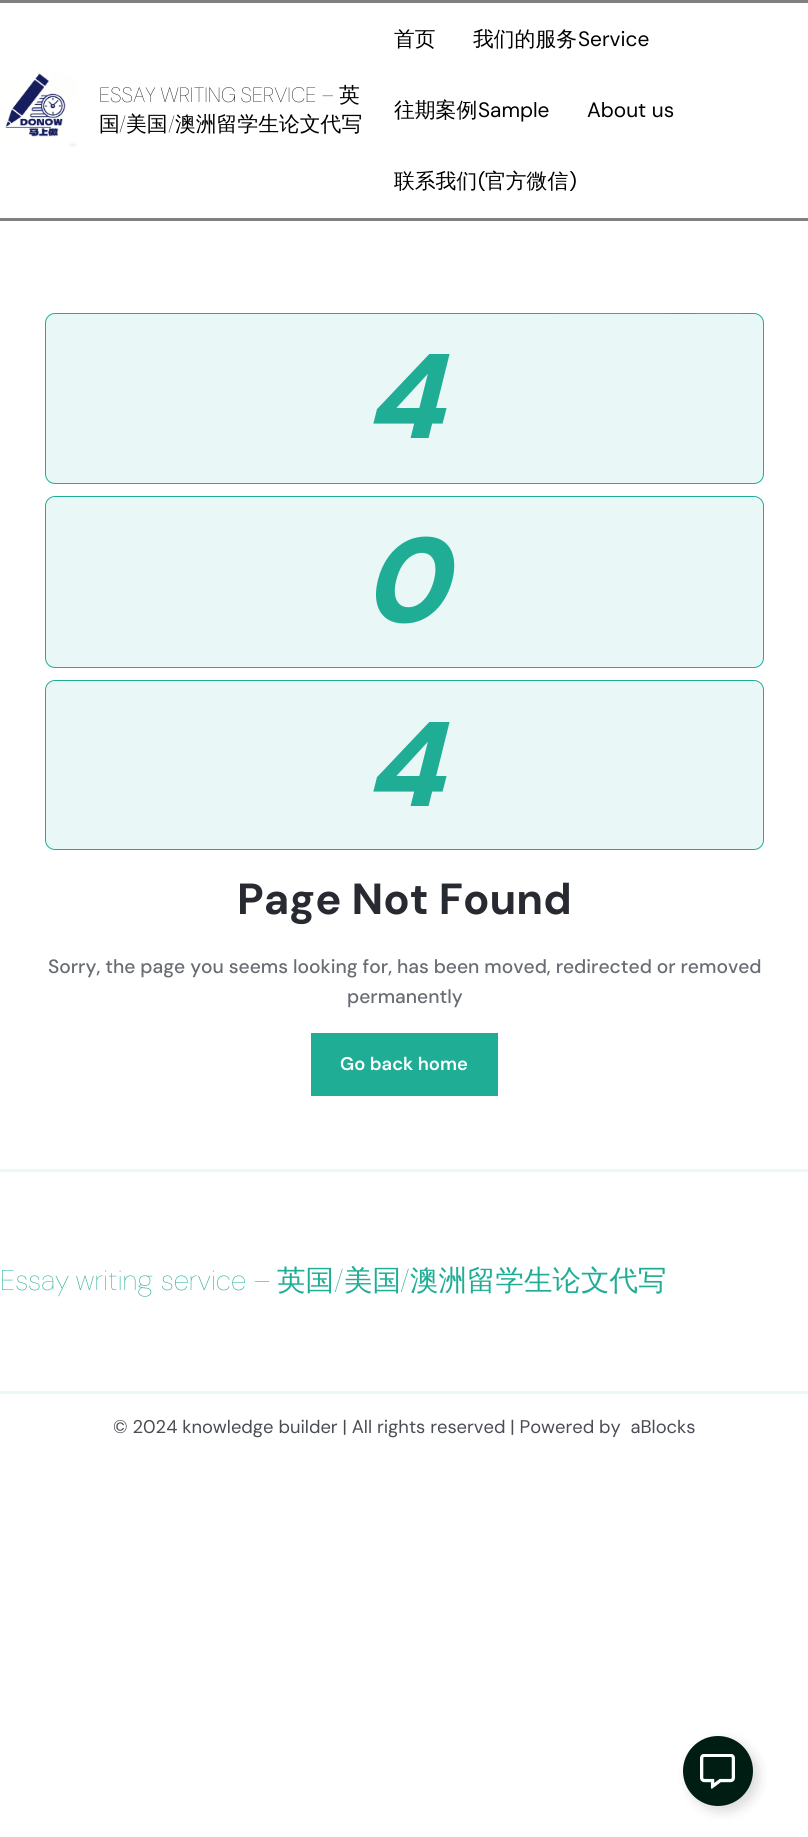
import math
import cairo


def write_spaced(ctx, x, y, s, letter, word):
	ctx.move_to(x, y)
	for ch in s:
		ctx.show_text(ch)
		ctx.rel_move_to(letter + word * (ch == ' '), 0)

def round_path(ctx, x, y, w, h, r):
	ctx.new_sub_path()
	for i, (u, v) in enumerate([(x + w - r, y + h - r), (x + r, y + h - r), (x + r, y + r), (x + w - r, y + r)]):
		ctx.arc(u, v, r, i * math.pi / 2, (i + 1) * math.pi / 2)
	ctx.close_path()

def blur_box(ctx, x, y, w, h, r, blur, alpha):
	ctx.push_group_with_content(cairo.CONTENT_ALPHA)
	ctx.set_operator(cairo.OPERATOR_SOURCE)
	for i in range(15, -16, -2):
		e = blur * i / 6
		if min(w, h) + 2 * e > 0:
			ctx.set_source_rgba(0, 0, 0, alpha * math.erfc((i - 1) / 8.5) / 2)
			round_path(ctx, x - e, y - e, w + 2 * e, h + 2 * e, max(0, min(r + e + blur * .6, min(w, h) / 2 + e)))
			ctx.fill()
	ctx.mask(ctx.pop_group())

def paste(ctx, path, x, y, w, h):
	ctx.save()
	ctx.set_source_surface(cairo.ImageSurface.create_from_png(path), x, y)
	ctx.rectangle(x, y, w, h)
	ctx.fill()
	ctx.restore()

def draw(ctx):
	ctx.set_source_rgb(1, 1, 1)
	ctx.paint()
	ctx.set_source_rgb(0.502, 0.502, 0.502)
	ctx.rectangle(0, 0, 808, 3)
	ctx.fill()
	paste(ctx, 'media/1.png', 2, 73, 75, 74)
	ctx.select_font_face('DM Sans Thin')
	ctx.set_font_size(20.8)
	ctx.set_source_rgb(0, 0, 0)
	ctx.move_to(99, 102)
	ctx.show_text('ESSAY WRITING SERVICE –')
	ctx.select_font_face('WenQuanYi Zen Hei Medium')
	ctx.move_to(339, 102)
	ctx.show_text('英')
	ctx.move_to(99, 131)
	ctx.show_text('国')
	ctx.select_font_face('DM Sans Thin')
	ctx.move_to(119, 131)
	ctx.show_text('/')
	ctx.select_font_face('WenQuanYi Zen Hei Medium')
	ctx.move_to(126, 131)
	ctx.show_text('美国')
	ctx.select_font_face('DM Sans Thin')
	ctx.move_to(168, 131)
	ctx.show_text('/')
	ctx.select_font_face('WenQuanYi Zen Hei Medium')
	for x, y, s in [
		(175, 131, '澳洲留学生论文代写'),
		(394, 46, '首页'),
		(473, 46, '我们的服务'),
	]:
		ctx.move_to(x, y)
		ctx.show_text(s)
	ctx.select_font_face('DM Sans')
	ctx.move_to(578, 46)
	ctx.show_text('Service')
	ctx.select_font_face('WenQuanYi Zen Hei Medium')
	ctx.move_to(394, 117)
	ctx.show_text('往期案例')
	ctx.select_font_face('DM Sans')
	ctx.move_to(478, 117)
	ctx.show_text('Sample')
	ctx.move_to(587, 117)
	ctx.show_text('About us')
	ctx.select_font_face('WenQuanYi Zen Hei Medium')
	ctx.move_to(394, 188)
	ctx.show_text('联系我们')
	ctx.select_font_face('DM Sans')
	ctx.move_to(478, 188)
	ctx.show_text('(')
	ctx.select_font_face('WenQuanYi Zen Hei Medium')
	ctx.move_to(485, 188)
	ctx.show_text('官方微信')
	ctx.select_font_face('DM Sans')
	ctx.move_to(569, 188)
	ctx.show_text(')')
	ctx.set_source_rgb(0.502, 0.502, 0.502)
	ctx.rectangle(0, 218, 808, 3)
	ctx.fill()
	ctx.set_source_rgb(0.914, 0.969, 0.961)
	round_path(ctx, 45.5, 313.5, 718, 170, 9.5)
	ctx.fill_preserve()
	ctx.set_source_rgb(0.125, 0.678, 0.588)
	ctx.set_line_width(1)
	ctx.stroke()
	paste(ctx, 'media/2.png', 557, 313, 184, 1)
	ctx.select_font_face('DM Sans Black', cairo.FONT_SLANT_ITALIC)
	ctx.set_font_size(120)
	ctx.move_to(364, 438)
	ctx.show_text('4')
	ctx.set_source_rgb(0.914, 0.969, 0.961)
	round_path(ctx, 45.5, 496.5, 718, 171, 9.5)
	ctx.fill_preserve()
	ctx.set_source_rgb(0.125, 0.678, 0.588)
	ctx.stroke()
	ctx.move_to(362, 622)
	ctx.show_text('0')
	ctx.set_source_rgb(0.914, 0.969, 0.961)
	round_path(ctx, 45.5, 680.5, 718, 169, 9.5)
	ctx.fill_preserve()
	ctx.set_source_rgb(0.125, 0.678, 0.588)
	ctx.stroke()
	ctx.move_to(364, 806)
	ctx.show_text('4')
	ctx.select_font_face('DM Sans', cairo.FONT_SLANT_NORMAL, cairo.FONT_WEIGHT_BOLD)
	ctx.set_font_size(43.5)
	ctx.set_source_rgb(0.153, 0.165, 0.188)
	ctx.move_to(237, 914)
	ctx.show_text('Page Not Found')
	ctx.select_font_face('DM Sans Medium')
	ctx.set_font_size(19.2)
	ctx.set_source_rgb(0.408, 0.424, 0.451)
	ctx.move_to(48, 973)
	ctx.show_text('Sorry, the page you seems looking for, has been moved, redirected or removed')
	ctx.move_to(347, 1003)
	ctx.show_text('permanently')
	ctx.set_source_rgb(0.125, 0.678, 0.588)
	ctx.rectangle(311, 1033, 187, 63)
	ctx.fill()
	ctx.select_font_face('DM Sans SemiBold')
	ctx.set_font_size(18.35)
	ctx.set_source_rgb(1, 1, 1)
	ctx.move_to(340, 1070)
	ctx.show_text('Go back home')
	ctx.set_source_rgb(0.914, 0.969, 0.961)
	ctx.rectangle(0, 1169, 808, 3)
	ctx.fill()
	ctx.rectangle(0, 1391, 808, 3)
	ctx.fill()
	ctx.select_font_face('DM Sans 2 Thin')
	ctx.set_font_size(28.5)
	ctx.set_source_rgb(0.125, 0.678, 0.588)
	write_spaced(ctx, 0, 1290, 'Essay writing service –', 0, 0.5)
	ctx.select_font_face('WenQuanYi Zen Hei Medium')
	ctx.move_to(277, 1290)
	ctx.show_text('英国')
	ctx.select_font_face('DM Sans 2 Thin')
	ctx.move_to(334, 1290)
	ctx.show_text('/')
	ctx.select_font_face('WenQuanYi Zen Hei Medium')
	ctx.move_to(344, 1290)
	ctx.show_text('美国')
	ctx.select_font_face('DM Sans 2 Thin')
	ctx.move_to(400, 1290)
	ctx.show_text('/')
	ctx.select_font_face('WenQuanYi Zen Hei Medium')
	ctx.move_to(410, 1290)
	ctx.show_text('澳洲留学生论文代写')
	ctx.select_font_face('DM Sans')
	ctx.set_font_size(18.35)
	ctx.set_source_rgb(0.286, 0.298, 0.325)
	ctx.move_to(113, 1433)
	ctx.show_text('© 2024 knowledge builder | All rights reserved | Powered by  aBlocks')
	ctx.set_source_rgb(0, 0, 0)
	blur_box(ctx, 688, 1741, 70, 70, 35, 6, 0.15)
	ctx.set_source_rgb(0, 0.114, 0.075)
	ctx.arc(718, 1771, 35, 0, 2 * math.pi)
	ctx.fill()
	paste(ctx, 'media/3.png', 700, 1754, 35, 35)


surface = cairo.ImageSurface(cairo.FORMAT_RGB24, 808, 1837)
ctx = cairo.Context(surface)
options = cairo.FontOptions()
options.set_hint_metrics(cairo.HINT_METRICS_OFF)
options.set_hint_style(cairo.HINT_STYLE_NONE)
ctx.set_font_options(options)
ctx.set_miter_limit(4)
draw(ctx)
surface.write_to_png('image.png')
